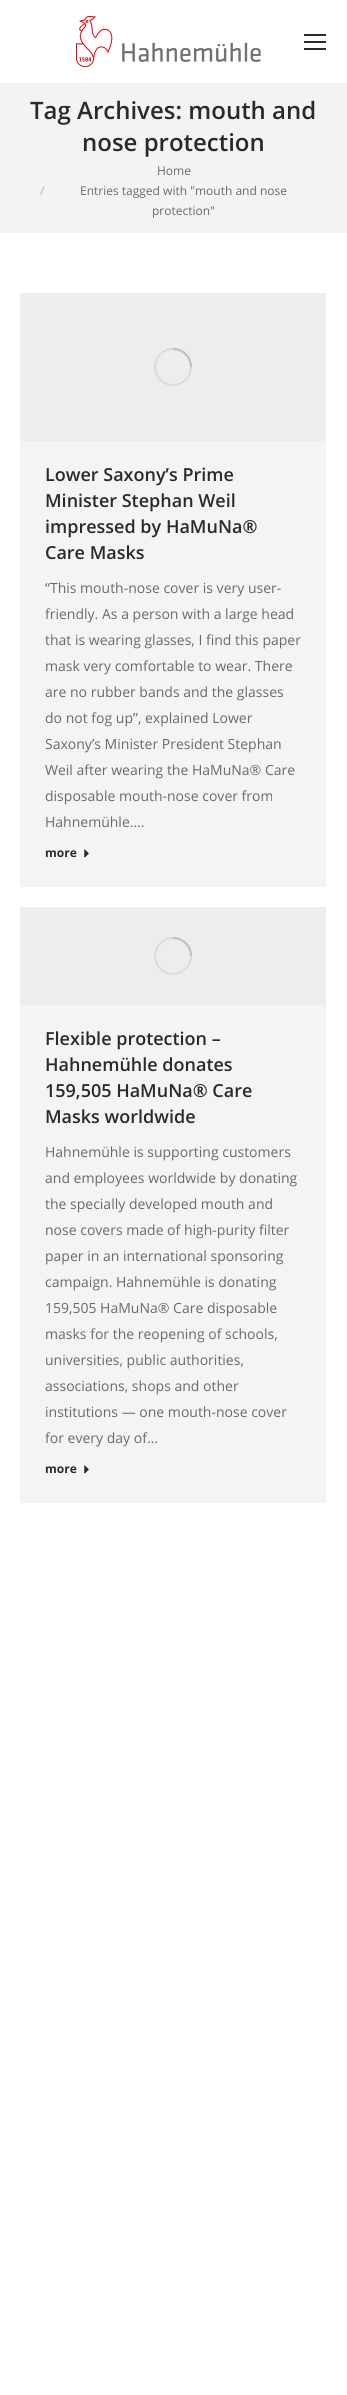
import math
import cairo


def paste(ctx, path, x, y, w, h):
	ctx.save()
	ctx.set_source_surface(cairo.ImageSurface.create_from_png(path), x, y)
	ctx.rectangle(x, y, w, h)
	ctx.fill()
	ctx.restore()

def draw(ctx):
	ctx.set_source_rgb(1, 1, 1)
	ctx.paint()
	paste(ctx, 'media/1.png', 76, 16, 185, 51)
	ctx.set_source_rgb(0.149, 0.169, 0.18)
	ctx.rectangle(304, 34, 22, 2)
	ctx.rectangle(304, 41, 22, 2)
	ctx.rectangle(304, 48, 22, 2)
	ctx.fill()
	ctx.set_source_rgb(0.953, 0.953, 0.953)
	ctx.rectangle(0, 83, 347, 150)
	ctx.fill()
	ctx.select_font_face('Open Sans SemiBold')
	ctx.set_font_size(24)
	ctx.set_source_rgb(0.149, 0.169, 0.18)
	ctx.move_to(30, 119)
	ctx.show_text('Tag Archives: mouth and')
	ctx.move_to(82, 151)
	ctx.show_text('nose protection')
	ctx.select_font_face('Open Sans')
	ctx.set_font_size(12)
	ctx.set_source_rgb(0.404, 0.42, 0.427)
	ctx.move_to(157, 175)
	ctx.show_text('Home')
	ctx.set_source_rgb(0.678, 0.686, 0.69)
	ctx.move_to(40, 195)
	ctx.show_text('/')
	ctx.set_source_rgb(0.404, 0.42, 0.427)
	ctx.move_to(80, 195)
	ctx.show_text('Entries tagged with "mouth and nose')
	ctx.move_to(152, 215)
	ctx.show_text('protection"')
	ctx.set_source_rgb(0.957, 0.957, 0.957)
	ctx.rectangle(20, 441, 306, 446)
	ctx.fill()
	ctx.set_source_rgb(0.929, 0.929, 0.929)
	ctx.rectangle(20, 293, 306, 148)
	ctx.fill()
	ctx.arc(173, 367, 18, 0, 2 * math.pi)
	ctx.set_source_rgb(0.859, 0.859, 0.859)
	ctx.stroke()
	ctx.new_path()
	ctx.move_to(191, 367)
	ctx.curve_to(191, 357, 183, 349, 173, 349)
	ctx.set_source_rgba(0.404, 0.42, 0.427, 0.25)
	ctx.stroke()
	ctx.select_font_face('Open Sans SemiBold')
	ctx.set_font_size(18)
	ctx.set_source_rgb(0.149, 0.169, 0.18)
	for x, y, s in [
		(45, 481, 'Lower Saxony’s Prime'),
		(45, 507, 'Minister Stephan Weil'),
		(45, 533, 'impressed by HaMuNa®'),
		(45, 559, 'Care Masks'),
	]:
		ctx.move_to(x, y)
		ctx.show_text(s)
	ctx.select_font_face('Open Sans')
	ctx.set_font_size(14)
	ctx.set_source_rgb(0.404, 0.42, 0.427)
	for x, y, s in [
		(45, 593, '“This mouth-nose cover is very user-'),
		(45, 619, 'friendly. As a person with a large head'),
		(45, 645, 'that is wearing glasses, I find this paper'),
		(45, 671, 'mask very comfortable to wear. There'),
		(45, 697, 'are no rubber bands and the glasses'),
		(45, 723, 'do not fog up”, explained Lower'),
		(45, 749, 'Saxony’s Minister President Stephan'),
		(45, 775, 'Weil after wearing the HaMuNa® Care'),
		(45, 801, 'disposable mouth-nose cover from'),
		(45, 827, 'Hahnemühle.…'),
	]:
		ctx.move_to(x, y)
		ctx.show_text(s)
	ctx.select_font_face('Open Sans', cairo.FONT_SLANT_NORMAL, cairo.FONT_WEIGHT_BOLD)
	ctx.set_font_size(12)
	ctx.set_source_rgb(0.149, 0.169, 0.18)
	ctx.move_to(45, 857)
	ctx.show_text('more')
	paste(ctx, 'media/2.png', 84, 849, 5, 9)
	ctx.set_source_rgb(0.957, 0.957, 0.957)
	ctx.rectangle(20, 1005, 306, 498)
	ctx.fill()
	ctx.set_source_rgb(0.929, 0.929, 0.929)
	ctx.rectangle(20, 907, 306, 98)
	ctx.fill()
	ctx.arc(173, 956, 18, 0, 2 * math.pi)
	ctx.set_source_rgb(0.859, 0.859, 0.859)
	ctx.stroke()
	ctx.new_path()
	ctx.move_to(191, 956)
	ctx.curve_to(191, 946, 183, 938, 173, 938)
	ctx.set_source_rgba(0.404, 0.42, 0.427, 0.25)
	ctx.stroke()
	ctx.select_font_face('Open Sans SemiBold')
	ctx.set_font_size(18)
	ctx.set_source_rgb(0.149, 0.169, 0.18)
	for x, y, s in [
		(45, 1045, 'Flexible protection –'),
		(45, 1071, 'Hahnemühle donates'),
		(45, 1097, '159,505 HaMuNa® Care'),
		(45, 1123, 'Masks worldwide'),
	]:
		ctx.move_to(x, y)
		ctx.show_text(s)
	ctx.select_font_face('Open Sans')
	ctx.set_font_size(14)
	ctx.set_source_rgb(0.404, 0.42, 0.427)
	for x, y, s in [
		(45, 1157, 'Hahnemühle is supporting customers'),
		(45, 1183, 'and employees worldwide by donating'),
		(45, 1209, 'the specially developed mouth and'),
		(45, 1235, 'nose covers made of high-purity filter'),
		(45, 1261, 'paper in an international sponsoring'),
		(45, 1287, 'campaign. Hahnemühle is donating'),
		(45, 1313, '159,505 HaMuNa® Care disposable'),
		(45, 1339, 'masks for the reopening of schools,'),
		(45, 1365, 'universities, public authorities,'),
		(45, 1391, 'associations, shops and other'),
		(45, 1417, 'institutions — one mouth-nose cover'),
		(45, 1443, 'for every day of…'),
	]:
		ctx.move_to(x, y)
		ctx.show_text(s)
	ctx.select_font_face('Open Sans', cairo.FONT_SLANT_NORMAL, cairo.FONT_WEIGHT_BOLD)
	ctx.set_font_size(12)
	ctx.set_source_rgb(0.149, 0.169, 0.18)
	ctx.move_to(45, 1473)
	ctx.show_text('more')
	paste(ctx, 'media/2.png', 84, 1465, 5, 9)


surface = cairo.ImageSurface(cairo.FORMAT_RGB24, 347, 2395)
ctx = cairo.Context(surface)
options = cairo.FontOptions()
options.set_hint_metrics(cairo.HINT_METRICS_OFF)
options.set_hint_style(cairo.HINT_STYLE_NONE)
ctx.set_font_options(options)
ctx.set_miter_limit(4)
draw(ctx)
surface.write_to_png('image.png')
